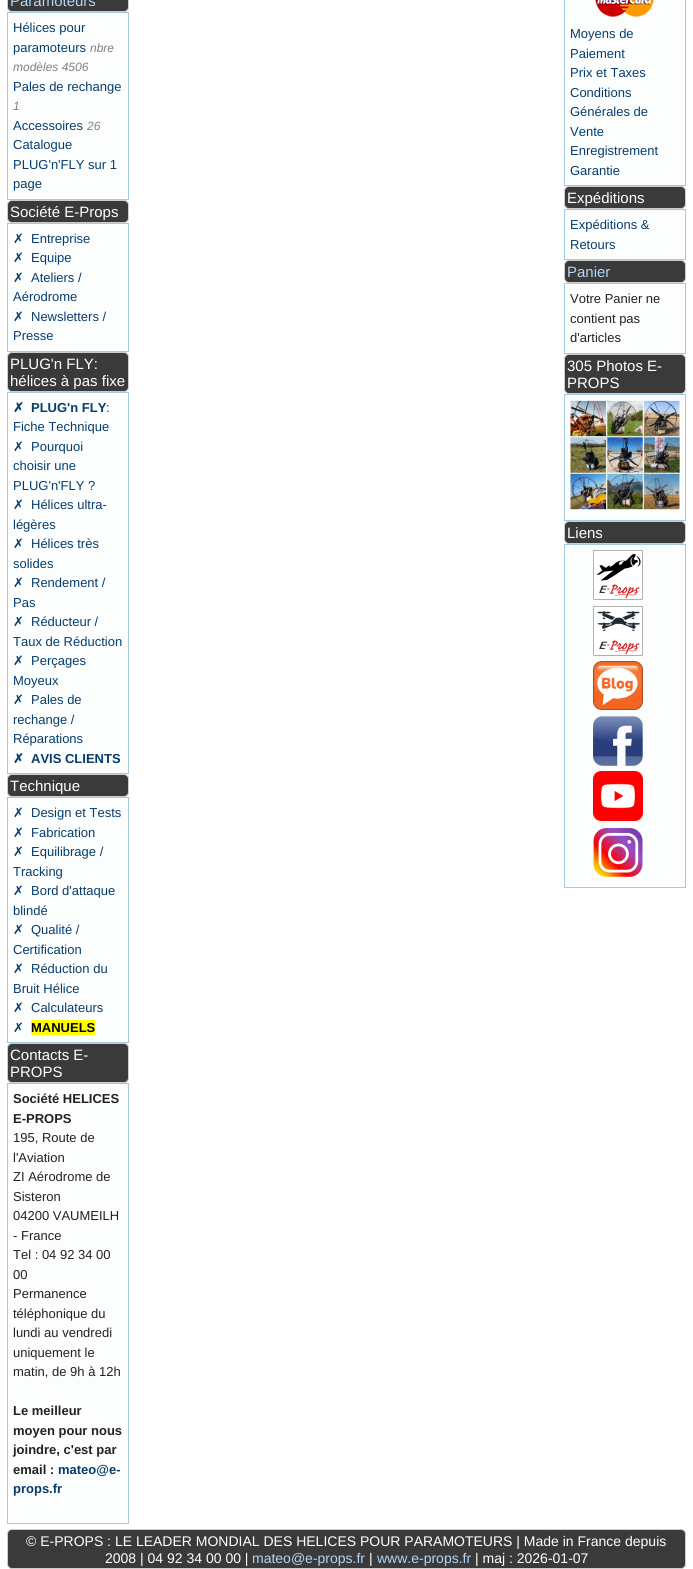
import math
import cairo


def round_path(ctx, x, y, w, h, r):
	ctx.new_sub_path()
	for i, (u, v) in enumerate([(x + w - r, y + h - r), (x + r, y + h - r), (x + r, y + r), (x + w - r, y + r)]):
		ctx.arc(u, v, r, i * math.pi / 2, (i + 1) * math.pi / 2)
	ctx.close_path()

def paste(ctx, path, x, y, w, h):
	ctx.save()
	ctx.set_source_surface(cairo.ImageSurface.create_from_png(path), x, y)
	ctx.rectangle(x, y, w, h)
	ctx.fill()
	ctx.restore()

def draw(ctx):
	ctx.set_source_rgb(1, 1, 1)
	ctx.paint()
	ctx.set_source_rgb(0.227, 0.227, 0.227)
	round_path(ctx, 7.5, -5.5, 121, 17, 4.5)
	ctx.fill_preserve()
	ctx.set_source_rgb(0.8, 0.8, 0.8)
	ctx.set_line_width(1)
	ctx.stroke()
	ctx.select_font_face('Liberation Sans')
	ctx.set_font_size(15)
	ctx.set_source_rgb(0.698, 0.839, 0.961)
	ctx.move_to(10, 6)
	ctx.show_text('Paramoteurs')
	ctx.set_source_rgb(0.988, 0.992, 0.992)
	ctx.rectangle(7.5, 12.5, 121, 187)
	ctx.fill_preserve()
	ctx.set_source_rgb(0.651, 0.788, 0.886)
	ctx.stroke()
	ctx.set_font_size(13)
	ctx.set_source_rgb(0.024, 0.239, 0.427)
	ctx.move_to(13, 32)
	ctx.show_text('Hélices pour')
	ctx.move_to(13, 52)
	ctx.show_text('paramoteurs')
	ctx.select_font_face('Liberation Sans', cairo.FONT_SLANT_ITALIC)
	ctx.set_font_size(12)
	ctx.set_source_rgb(0.502, 0.502, 0.502)
	ctx.move_to(90, 52)
	ctx.show_text('nbre')
	ctx.move_to(13, 71)
	ctx.show_text('modèles 4506')
	ctx.select_font_face('Liberation Sans')
	ctx.set_font_size(13)
	ctx.set_source_rgb(0.024, 0.239, 0.427)
	ctx.move_to(13, 91)
	ctx.show_text('Pales de rechange')
	ctx.select_font_face('Liberation Sans', cairo.FONT_SLANT_ITALIC)
	ctx.set_font_size(12)
	ctx.set_source_rgb(0.502, 0.502, 0.502)
	ctx.move_to(13, 110)
	ctx.show_text('1')
	ctx.select_font_face('Liberation Sans')
	ctx.set_font_size(13)
	ctx.set_source_rgb(0.024, 0.239, 0.427)
	ctx.move_to(13, 130)
	ctx.show_text('Accessoires')
	ctx.select_font_face('Liberation Sans', cairo.FONT_SLANT_ITALIC)
	ctx.set_font_size(12)
	ctx.set_source_rgb(0.502, 0.502, 0.502)
	ctx.move_to(87, 130)
	ctx.show_text('26')
	ctx.select_font_face('Liberation Sans')
	ctx.set_font_size(13)
	ctx.set_source_rgb(0.024, 0.239, 0.427)
	for x, y, s in [
		(13, 149, 'Catalogue'),
		(13, 169, 'PLUG\'n\'FLY sur 1'),
		(13, 188, 'page'),
	]:
		ctx.move_to(x, y)
		ctx.show_text(s)
	ctx.set_source_rgb(0.227, 0.227, 0.227)
	round_path(ctx, 7.5, 200.5, 121, 22, 4.5)
	ctx.fill_preserve()
	ctx.set_source_rgb(0.8, 0.8, 0.8)
	ctx.stroke()
	ctx.set_font_size(15)
	ctx.set_source_rgb(1, 1, 1)
	ctx.move_to(10, 217)
	ctx.show_text('Société E-Props')
	ctx.set_source_rgb(0.988, 0.992, 0.992)
	ctx.rectangle(7.5, 223.5, 121, 128)
	ctx.fill_preserve()
	ctx.set_source_rgb(0.651, 0.788, 0.886)
	ctx.stroke()
	ctx.select_font_face('DejaVu Sans')
	ctx.set_font_size(13)
	ctx.set_source_rgb(0.024, 0.239, 0.427)
	ctx.move_to(13, 243)
	ctx.show_text('✗')
	ctx.select_font_face('Liberation Sans')
	ctx.move_to(31, 243)
	ctx.show_text('Entreprise')
	ctx.select_font_face('DejaVu Sans')
	ctx.move_to(13, 262)
	ctx.show_text('✗')
	ctx.select_font_face('Liberation Sans')
	ctx.move_to(31, 262)
	ctx.show_text('Equipe')
	ctx.select_font_face('DejaVu Sans')
	ctx.move_to(13, 282)
	ctx.show_text('✗')
	ctx.select_font_face('Liberation Sans')
	ctx.move_to(31, 282)
	ctx.show_text('Ateliers /')
	ctx.move_to(13, 301)
	ctx.show_text('Aérodrome')
	ctx.select_font_face('DejaVu Sans')
	ctx.move_to(13, 321)
	ctx.show_text('✗')
	ctx.select_font_face('Liberation Sans')
	ctx.move_to(31, 321)
	ctx.show_text('Newsletters /')
	ctx.move_to(13, 340)
	ctx.show_text('Presse')
	ctx.set_source_rgb(0.227, 0.227, 0.227)
	round_path(ctx, 7.5, 352.5, 121, 39, 4.5)
	ctx.fill_preserve()
	ctx.set_source_rgb(0.8, 0.8, 0.8)
	ctx.stroke()
	ctx.set_font_size(15)
	ctx.set_source_rgb(1, 1, 1)
	ctx.move_to(10, 369)
	ctx.show_text('PLUG\'n FLY:')
	ctx.move_to(10, 386)
	ctx.show_text('hélices à pas fixe')
	ctx.set_source_rgb(0.988, 0.992, 0.992)
	ctx.rectangle(7.5, 392.5, 121, 381)
	ctx.fill_preserve()
	ctx.set_source_rgb(0.651, 0.788, 0.886)
	ctx.stroke()
	ctx.select_font_face('DejaVu Sans', cairo.FONT_SLANT_NORMAL, cairo.FONT_WEIGHT_BOLD)
	ctx.set_font_size(13)
	ctx.set_source_rgb(0.024, 0.239, 0.427)
	ctx.move_to(13, 412)
	ctx.show_text('✗')
	ctx.select_font_face('Liberation Sans', cairo.FONT_SLANT_NORMAL, cairo.FONT_WEIGHT_BOLD)
	ctx.move_to(31, 412)
	ctx.show_text('PLUG\'n FLY')
	ctx.select_font_face('Liberation Sans')
	ctx.move_to(106, 412)
	ctx.show_text(':')
	ctx.move_to(13, 431)
	ctx.show_text('Fiche Technique')
	ctx.select_font_face('DejaVu Sans')
	ctx.move_to(13, 451)
	ctx.show_text('✗')
	ctx.select_font_face('Liberation Sans')
	for x, y, s in [
		(31, 451, 'Pourquoi'),
		(13, 470, 'choisir une'),
		(13, 490, 'PLUG\'n\'FLY ?'),
	]:
		ctx.move_to(x, y)
		ctx.show_text(s)
	ctx.select_font_face('DejaVu Sans')
	ctx.move_to(13, 509)
	ctx.show_text('✗')
	ctx.select_font_face('Liberation Sans')
	ctx.move_to(31, 509)
	ctx.show_text('Hélices ultra-')
	ctx.move_to(13, 529)
	ctx.show_text('légères')
	ctx.select_font_face('DejaVu Sans')
	ctx.move_to(13, 548)
	ctx.show_text('✗')
	ctx.select_font_face('Liberation Sans')
	ctx.move_to(31, 548)
	ctx.show_text('Hélices très')
	ctx.move_to(13, 568)
	ctx.show_text('solides')
	ctx.select_font_face('DejaVu Sans')
	ctx.move_to(13, 587)
	ctx.show_text('✗')
	ctx.select_font_face('Liberation Sans')
	ctx.move_to(31, 587)
	ctx.show_text('Rendement /')
	ctx.move_to(13, 607)
	ctx.show_text('Pas')
	ctx.select_font_face('DejaVu Sans')
	ctx.move_to(13, 626)
	ctx.show_text('✗')
	ctx.select_font_face('Liberation Sans')
	ctx.move_to(31, 626)
	ctx.show_text('Réducteur /')
	ctx.move_to(13, 646)
	ctx.show_text('Taux de Réduction')
	ctx.select_font_face('DejaVu Sans')
	ctx.move_to(13, 665)
	ctx.show_text('✗')
	ctx.select_font_face('Liberation Sans')
	ctx.move_to(31, 665)
	ctx.show_text('Perçages')
	ctx.move_to(13, 685)
	ctx.show_text('Moyeux')
	ctx.select_font_face('DejaVu Sans')
	ctx.move_to(13, 704)
	ctx.show_text('✗')
	ctx.select_font_face('Liberation Sans')
	for x, y, s in [
		(31, 704, 'Pales de'),
		(13, 724, 'rechange /'),
		(13, 743, 'Réparations'),
	]:
		ctx.move_to(x, y)
		ctx.show_text(s)
	ctx.select_font_face('DejaVu Sans', cairo.FONT_SLANT_NORMAL, cairo.FONT_WEIGHT_BOLD)
	ctx.move_to(13, 763)
	ctx.show_text('✗')
	ctx.select_font_face('Liberation Sans', cairo.FONT_SLANT_NORMAL, cairo.FONT_WEIGHT_BOLD)
	ctx.move_to(31, 763)
	ctx.show_text('AVIS CLIENTS')
	ctx.set_source_rgb(0.227, 0.227, 0.227)
	round_path(ctx, 7.5, 774.5, 121, 22, 4.5)
	ctx.fill_preserve()
	ctx.set_source_rgb(0.8, 0.8, 0.8)
	ctx.stroke()
	ctx.select_font_face('Liberation Sans')
	ctx.set_font_size(15)
	ctx.set_source_rgb(1, 1, 1)
	ctx.move_to(10, 791)
	ctx.show_text('Technique')
	ctx.set_source_rgb(0.988, 0.992, 0.992)
	ctx.rectangle(7.5, 797.5, 121, 245)
	ctx.fill_preserve()
	ctx.set_source_rgb(0.651, 0.788, 0.886)
	ctx.stroke()
	ctx.select_font_face('DejaVu Sans')
	ctx.set_font_size(13)
	ctx.set_source_rgb(0.024, 0.239, 0.427)
	ctx.move_to(13, 817)
	ctx.show_text('✗')
	ctx.select_font_face('Liberation Sans')
	ctx.move_to(31, 817)
	ctx.show_text('Design et Tests')
	ctx.select_font_face('DejaVu Sans')
	ctx.move_to(13, 837)
	ctx.show_text('✗')
	ctx.select_font_face('Liberation Sans')
	ctx.move_to(31, 837)
	ctx.show_text('Fabrication')
	ctx.select_font_face('DejaVu Sans')
	ctx.move_to(13, 856)
	ctx.show_text('✗')
	ctx.select_font_face('Liberation Sans')
	ctx.move_to(31, 856)
	ctx.show_text('Equilibrage /')
	ctx.move_to(13, 876)
	ctx.show_text('Tracking')
	ctx.select_font_face('DejaVu Sans')
	ctx.move_to(13, 895)
	ctx.show_text('✗')
	ctx.select_font_face('Liberation Sans')
	ctx.move_to(31, 895)
	ctx.show_text('Bord d\'attaque')
	ctx.move_to(13, 915)
	ctx.show_text('blindé')
	ctx.select_font_face('DejaVu Sans')
	ctx.move_to(13, 934)
	ctx.show_text('✗')
	ctx.select_font_face('Liberation Sans')
	ctx.move_to(31, 934)
	ctx.show_text('Qualité /')
	ctx.move_to(13, 954)
	ctx.show_text('Certification')
	ctx.select_font_face('DejaVu Sans')
	ctx.move_to(13, 973)
	ctx.show_text('✗')
	ctx.select_font_face('Liberation Sans')
	ctx.move_to(31, 973)
	ctx.show_text('Réduction du')
	ctx.move_to(13, 993)
	ctx.show_text('Bruit Hélice')
	ctx.select_font_face('DejaVu Sans')
	ctx.move_to(13, 1012)
	ctx.show_text('✗')
	ctx.select_font_face('Liberation Sans')
	ctx.move_to(31, 1012)
	ctx.show_text('Calculateurs')
	ctx.select_font_face('DejaVu Sans')
	ctx.move_to(13, 1032)
	ctx.show_text('✗')
	ctx.set_source_rgb(1, 1, 0)
	ctx.rectangle(31, 1020, 64, 15)
	ctx.fill()
	ctx.select_font_face('Liberation Sans', cairo.FONT_SLANT_NORMAL, cairo.FONT_WEIGHT_BOLD)
	ctx.set_source_rgb(0, 0, 0)
	ctx.move_to(31, 1032)
	ctx.show_text('MANUELS')
	ctx.set_source_rgb(0.227, 0.227, 0.227)
	round_path(ctx, 7.5, 1043.5, 121, 39, 4.5)
	ctx.fill_preserve()
	ctx.set_source_rgb(0.8, 0.8, 0.8)
	ctx.stroke()
	ctx.select_font_face('Liberation Sans')
	ctx.set_font_size(15)
	ctx.set_source_rgb(1, 1, 1)
	ctx.move_to(10, 1060)
	ctx.show_text('Contacts E-')
	ctx.move_to(10, 1077)
	ctx.show_text('PROPS')
	ctx.set_source_rgb(0.988, 0.992, 0.992)
	ctx.rectangle(7.5, 1083.5, 121, 440)
	ctx.fill_preserve()
	ctx.set_source_rgb(0.651, 0.788, 0.886)
	ctx.stroke()
	ctx.select_font_face('Liberation Sans', cairo.FONT_SLANT_NORMAL, cairo.FONT_WEIGHT_BOLD)
	ctx.set_font_size(13)
	ctx.set_source_rgb(0.133, 0.133, 0.133)
	ctx.move_to(13, 1103)
	ctx.show_text('Société HELICES')
	ctx.move_to(13, 1123)
	ctx.show_text('E-PROPS')
	ctx.select_font_face('Liberation Sans')
	for x, y, s in [
		(13, 1142, '195, Route de'),
		(13, 1162, 'l\'Aviation'),
		(13, 1181, 'ZI Aérodrome de'),
		(13, 1201, 'Sisteron'),
		(13, 1220, '04200 VAUMEILH'),
		(13, 1240, '- France'),
		(13, 1259, 'Tel : 04 92 34 00'),
		(13, 1279, '00'),
		(13, 1298, 'Permanence'),
		(13, 1318, 'téléphonique du'),
		(13, 1337, 'lundi au vendredi'),
		(13, 1357, 'uniquement le'),
		(13, 1376, 'matin, de 9h à 12h'),
	]:
		ctx.move_to(x, y)
		ctx.show_text(s)
	ctx.select_font_face('Liberation Sans', cairo.FONT_SLANT_NORMAL, cairo.FONT_WEIGHT_BOLD)
	for x, y, s in [
		(13, 1415, 'Le meilleur'),
		(13, 1435, 'moyen pour nous'),
		(13, 1454, 'joindre, c\'est par'),
		(13, 1474, 'email :'),
	]:
		ctx.move_to(x, y)
		ctx.show_text(s)
	ctx.set_source_rgb(0.024, 0.239, 0.427)
	ctx.move_to(58, 1474)
	ctx.show_text('mateo@e-')
	ctx.move_to(13, 1493)
	ctx.show_text('props.fr')
	ctx.set_source_rgb(0.988, 0.992, 0.992)
	ctx.rectangle(564.5, -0.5, 121, 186)
	ctx.fill_preserve()
	ctx.set_source_rgb(0.651, 0.788, 0.886)
	ctx.stroke()
	paste(ctx, 'media/1.png', 595, 0, 59, 17)
	ctx.select_font_face('Liberation Sans')
	ctx.set_source_rgb(0.024, 0.239, 0.427)
	for x, y, s in [
		(570, 38, 'Moyens de'),
		(570, 58, 'Paiement'),
		(570, 77, 'Prix et Taxes'),
		(570, 97, 'Conditions'),
		(570, 116, 'Générales de'),
		(570, 136, 'Vente'),
		(570, 155, 'Enregistrement'),
		(570, 175, 'Garantie'),
	]:
		ctx.move_to(x, y)
		ctx.show_text(s)
	ctx.set_source_rgb(0.227, 0.227, 0.227)
	round_path(ctx, 564.5, 186.5, 121, 22, 4.5)
	ctx.fill_preserve()
	ctx.set_source_rgb(0.8, 0.8, 0.8)
	ctx.stroke()
	ctx.set_font_size(15)
	ctx.set_source_rgb(1, 1, 1)
	ctx.move_to(567, 203)
	ctx.show_text('Expéditions')
	ctx.set_source_rgb(0.988, 0.992, 0.992)
	ctx.rectangle(564.5, 209.5, 121, 50)
	ctx.fill_preserve()
	ctx.set_source_rgb(0.651, 0.788, 0.886)
	ctx.stroke()
	ctx.set_font_size(13)
	ctx.set_source_rgb(0.024, 0.239, 0.427)
	ctx.move_to(570, 229)
	ctx.show_text('Expéditions &')
	ctx.move_to(570, 249)
	ctx.show_text('Retours')
	ctx.set_source_rgb(0.227, 0.227, 0.227)
	round_path(ctx, 564.5, 260.5, 121, 22, 4.5)
	ctx.fill_preserve()
	ctx.set_source_rgb(0.8, 0.8, 0.8)
	ctx.stroke()
	ctx.set_font_size(15)
	ctx.set_source_rgb(0.698, 0.839, 0.961)
	ctx.move_to(567, 277)
	ctx.show_text('Panier')
	ctx.set_source_rgb(0.988, 0.992, 0.992)
	ctx.rectangle(564.5, 283.5, 121, 70)
	ctx.fill_preserve()
	ctx.set_source_rgb(0.651, 0.788, 0.886)
	ctx.stroke()
	ctx.set_font_size(13)
	ctx.set_source_rgb(0.133, 0.133, 0.133)
	for x, y, s in [
		(570, 303, 'Votre Panier ne'),
		(570, 323, 'contient pas'),
		(570, 342, 'd\'articles'),
	]:
		ctx.move_to(x, y)
		ctx.show_text(s)
	ctx.set_source_rgb(0.227, 0.227, 0.227)
	round_path(ctx, 564.5, 354.5, 121, 39, 4.5)
	ctx.fill_preserve()
	ctx.set_source_rgb(0.8, 0.8, 0.8)
	ctx.stroke()
	ctx.set_font_size(15)
	ctx.set_source_rgb(1, 1, 1)
	ctx.move_to(567, 371)
	ctx.show_text('305 Photos E-')
	ctx.move_to(567, 388)
	ctx.show_text('PROPS')
	ctx.set_source_rgb(0.988, 0.992, 0.992)
	ctx.rectangle(564.5, 394.5, 121, 126)
	ctx.fill_preserve()
	ctx.set_source_rgb(0.651, 0.788, 0.886)
	ctx.stroke()
	paste(ctx, 'media/2.png', 570, 400, 110, 110)
	ctx.set_source_rgb(0.227, 0.227, 0.227)
	round_path(ctx, 564.5, 521.5, 121, 22, 4.5)
	ctx.fill_preserve()
	ctx.set_source_rgb(0.8, 0.8, 0.8)
	ctx.stroke()
	ctx.set_source_rgb(1, 1, 1)
	ctx.move_to(567, 538)
	ctx.show_text('Liens')
	ctx.set_source_rgb(0.988, 0.992, 0.992)
	ctx.rectangle(564.5, 544.5, 121, 343)
	ctx.fill_preserve()
	ctx.set_source_rgb(0.651, 0.788, 0.886)
	ctx.stroke()
	paste(ctx, 'media/3.png', 593, 550, 50, 50)
	paste(ctx, 'media/4.png', 593, 606, 50, 50)
	paste(ctx, 'media/5.png', 593, 661, 50, 49)
	paste(ctx, 'media/6.png', 593, 716, 50, 50)
	paste(ctx, 'media/7.png', 593, 771, 50, 50)
	paste(ctx, 'media/8.png', 593, 827, 50, 50)
	ctx.set_source_rgb(0.227, 0.227, 0.227)
	round_path(ctx, 7.5, 1529.5, 678, 39, 4.5)
	ctx.fill_preserve()
	ctx.set_source_rgb(0.8, 0.8, 0.8)
	ctx.stroke()
	ctx.set_font_size(14)
	ctx.set_source_rgb(1, 1, 1)
	ctx.move_to(26, 1546)
	ctx.show_text('© E-PROPS : LE LEADER MONDIAL DES HELICES POUR PARAMOTEURS | Made in France depuis')
	ctx.move_to(105, 1563)
	ctx.show_text('2008 | 04 92 34 00 00 |')
	ctx.set_source_rgb(0.698, 0.839, 0.961)
	ctx.move_to(252, 1563)
	ctx.show_text('mateo@e-props.fr')
	ctx.set_source_rgb(1, 1, 1)
	ctx.move_to(369, 1563)
	ctx.show_text('|')
	ctx.set_source_rgb(0.698, 0.839, 0.961)
	ctx.move_to(377, 1563)
	ctx.show_text('www.e-props.fr')
	ctx.set_source_rgb(1, 1, 1)
	ctx.move_to(475, 1563)
	ctx.show_text('| maj : 2026-01-07')


surface = cairo.ImageSurface(cairo.FORMAT_RGB24, 693, 1569)
ctx = cairo.Context(surface)
options = cairo.FontOptions()
options.set_hint_metrics(cairo.HINT_METRICS_OFF)
options.set_hint_style(cairo.HINT_STYLE_NONE)
ctx.set_font_options(options)
ctx.set_miter_limit(4)
draw(ctx)
surface.write_to_png('image.png')
